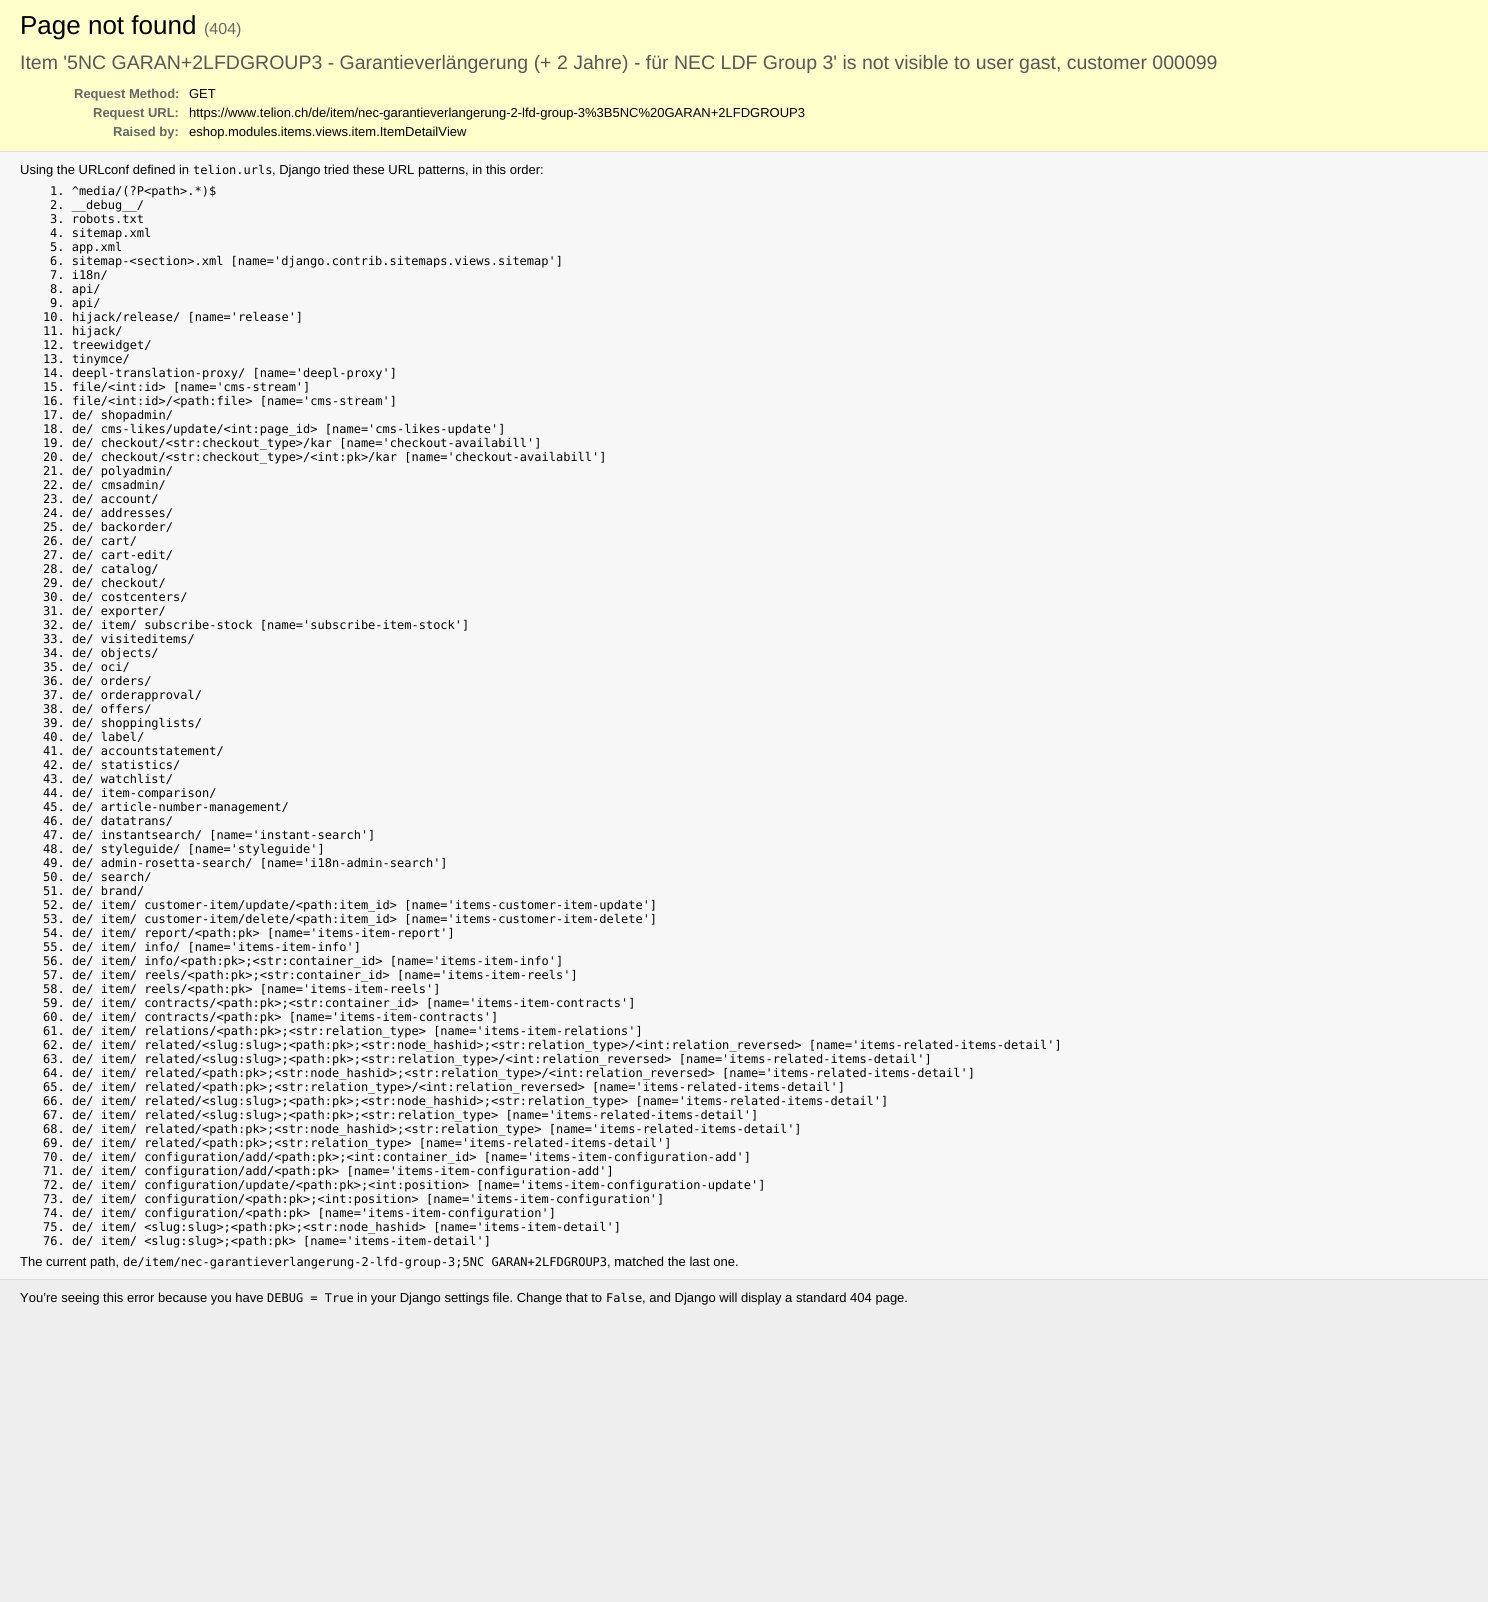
import math
import cairo


def draw(ctx):
	ctx.set_source_rgb(0.933, 0.933, 0.933)
	ctx.paint()
	ctx.set_source_rgb(1, 1, 0.8)
	ctx.rectangle(0, 0, 1488, 151)
	ctx.fill()
	ctx.set_source_rgb(0.867, 0.867, 0.867)
	ctx.rectangle(0, 151, 1488, 1)
	ctx.fill()
	ctx.select_font_face('Liberation Sans')
	ctx.set_font_size(26)
	ctx.set_source_rgb(0, 0, 0)
	ctx.move_to(20, 34)
	ctx.show_text('Page not found')
	ctx.set_font_size(16)
	ctx.set_source_rgb(0.4, 0.4, 0.4)
	ctx.move_to(204, 34)
	ctx.show_text('(404)')
	ctx.set_font_size(19.5)
	ctx.set_source_rgb(0.341, 0.341, 0.341)
	ctx.move_to(20, 69)
	ctx.show_text('Item \'5NC GARAN+2LFDGROUP3 - Garantieverlängerung (+ 2 Jahre) - für NEC LDF Group 3\' is not visible to user gast, customer 000099')
	ctx.select_font_face('Liberation Sans', cairo.FONT_SLANT_NORMAL, cairo.FONT_WEIGHT_BOLD)
	ctx.set_font_size(13)
	ctx.set_source_rgb(0.4, 0.4, 0.4)
	ctx.move_to(74, 98)
	ctx.show_text('Request Method:')
	ctx.select_font_face('Liberation Sans')
	ctx.set_source_rgb(0, 0, 0)
	ctx.move_to(189, 98)
	ctx.show_text('GET')
	ctx.select_font_face('Liberation Sans', cairo.FONT_SLANT_NORMAL, cairo.FONT_WEIGHT_BOLD)
	ctx.set_source_rgb(0.4, 0.4, 0.4)
	ctx.move_to(93, 117)
	ctx.show_text('Request URL:')
	ctx.select_font_face('Liberation Sans')
	ctx.set_source_rgb(0, 0, 0)
	ctx.move_to(189, 117)
	ctx.show_text('https://www.telion.ch/de/item/nec-garantieverlangerung-2-lfd-group-3%3B5NC%20GARAN+2LFDGROUP3')
	ctx.select_font_face('Liberation Sans', cairo.FONT_SLANT_NORMAL, cairo.FONT_WEIGHT_BOLD)
	ctx.set_source_rgb(0.4, 0.4, 0.4)
	ctx.move_to(113, 136)
	ctx.show_text('Raised by:')
	ctx.select_font_face('Liberation Sans')
	ctx.set_source_rgb(0, 0, 0)
	ctx.move_to(189, 136)
	ctx.show_text('eshop.modules.items.views.item.ItemDetailView')
	ctx.set_source_rgb(0.965, 0.965, 0.965)
	ctx.rectangle(0, 152, 1488, 1127)
	ctx.fill()
	ctx.set_source_rgb(0.867, 0.867, 0.867)
	ctx.rectangle(0, 1279, 1488, 1)
	ctx.fill()
	ctx.set_source_rgb(0, 0, 0)
	ctx.move_to(20, 174)
	ctx.show_text('Using the URLconf defined in')
	ctx.select_font_face('DejaVu Sans Mono')
	ctx.set_font_size(12)
	ctx.move_to(193, 174)
	ctx.show_text('telion.urls')
	ctx.select_font_face('Liberation Sans')
	ctx.set_font_size(13)
	ctx.move_to(272, 174)
	ctx.show_text(', Django tried these URL patterns, in this order:')
	ctx.select_font_face('DejaVu Sans Mono')
	ctx.set_font_size(12)
	for x, y, s in [
		(50, 195, '1. ^media/(?P<path>.*)$'),
		(50, 209, '2. __debug__/'),
		(50, 223, '3. robots.txt'),
		(50, 237, '4. sitemap.xml'),
		(50, 251, '5. app.xml'),
		(50, 265, '6. sitemap-<section>.xml [name=\'django.contrib.sitemaps.views.sitemap\']'),
		(50, 279, '7. i18n/'),
		(50, 293, '8. api/'),
		(50, 307, '9. api/'),
		(43, 321, '10. hijack/release/ [name=\'release\']'),
		(43, 335, '11. hijack/'),
		(43, 349, '12. treewidget/'),
		(43, 363, '13. tinymce/'),
		(43, 377, '14. deepl-translation-proxy/ [name=\'deepl-proxy\']'),
		(43, 391, '15. file/<int:id> [name=\'cms-stream\']'),
		(43, 405, '16. file/<int:id>/<path:file> [name=\'cms-stream\']'),
		(43, 419, '17. de/ shopadmin/'),
		(43, 433, '18. de/ cms-likes/update/<int:page_id> [name=\'cms-likes-update\']'),
		(43, 447, '19. de/ checkout/<str:checkout_type>/kar [name=\'checkout-availabill\']'),
		(43, 461, '20. de/ checkout/<str:checkout_type>/<int:pk>/kar [name=\'checkout-availabill\']'),
		(43, 475, '21. de/ polyadmin/'),
		(43, 489, '22. de/ cmsadmin/'),
		(43, 503, '23. de/ account/'),
		(43, 517, '24. de/ addresses/'),
		(43, 531, '25. de/ backorder/'),
		(43, 545, '26. de/ cart/'),
		(43, 559, '27. de/ cart-edit/'),
		(43, 573, '28. de/ catalog/'),
		(43, 587, '29. de/ checkout/'),
		(43, 601, '30. de/ costcenters/'),
		(43, 615, '31. de/ exporter/'),
		(43, 629, '32. de/ item/ subscribe-stock [name=\'subscribe-item-stock\']'),
		(43, 643, '33. de/ visiteditems/'),
		(43, 657, '34. de/ objects/'),
		(43, 671, '35. de/ oci/'),
		(43, 685, '36. de/ orders/'),
		(43, 699, '37. de/ orderapproval/'),
		(43, 713, '38. de/ offers/'),
		(43, 727, '39. de/ shoppinglists/'),
		(43, 741, '40. de/ label/'),
		(43, 755, '41. de/ accountstatement/'),
		(43, 769, '42. de/ statistics/'),
		(43, 783, '43. de/ watchlist/'),
		(43, 797, '44. de/ item-comparison/'),
		(43, 811, '45. de/ article-number-management/'),
		(43, 825, '46. de/ datatrans/'),
		(43, 839, '47. de/ instantsearch/ [name=\'instant-search\']'),
		(43, 853, '48. de/ styleguide/ [name=\'styleguide\']'),
		(43, 867, '49. de/ admin-rosetta-search/ [name=\'i18n-admin-search\']'),
		(43, 881, '50. de/ search/'),
		(43, 895, '51. de/ brand/'),
		(43, 909, '52. de/ item/ customer-item/update/<path:item_id> [name=\'items-customer-item-update\']'),
		(43, 923, '53. de/ item/ customer-item/delete/<path:item_id> [name=\'items-customer-item-delete\']'),
		(43, 937, '54. de/ item/ report/<path:pk> [name=\'items-item-report\']'),
		(43, 951, '55. de/ item/ info/ [name=\'items-item-info\']'),
		(43, 965, '56. de/ item/ info/<path:pk>;<str:container_id> [name=\'items-item-info\']'),
		(43, 979, '57. de/ item/ reels/<path:pk>;<str:container_id> [name=\'items-item-reels\']'),
		(43, 993, '58. de/ item/ reels/<path:pk> [name=\'items-item-reels\']'),
		(43, 1007, '59. de/ item/ contracts/<path:pk>;<str:container_id> [name=\'items-item-contracts\']'),
		(43, 1021, '60. de/ item/ contracts/<path:pk> [name=\'items-item-contracts\']'),
		(43, 1035, '61. de/ item/ relations/<path:pk>;<str:relation_type> [name=\'items-item-relations\']'),
		(43, 1049, '62. de/ item/ related/<slug:slug>;<path:pk>;<str:node_hashid>;<str:relation_type>/<int:relation_reversed> [name=\'items-related-items-detail\']'),
		(43, 1063, '63. de/ item/ related/<slug:slug>;<path:pk>;<str:relation_type>/<int:relation_reversed> [name=\'items-related-items-detail\']'),
		(43, 1077, '64. de/ item/ related/<path:pk>;<str:node_hashid>;<str:relation_type>/<int:relation_reversed> [name=\'items-related-items-detail\']'),
		(43, 1091, '65. de/ item/ related/<path:pk>;<str:relation_type>/<int:relation_reversed> [name=\'items-related-items-detail\']'),
		(43, 1105, '66. de/ item/ related/<slug:slug>;<path:pk>;<str:node_hashid>;<str:relation_type> [name=\'items-related-items-detail\']'),
		(43, 1119, '67. de/ item/ related/<slug:slug>;<path:pk>;<str:relation_type> [name=\'items-related-items-detail\']'),
		(43, 1133, '68. de/ item/ related/<path:pk>;<str:node_hashid>;<str:relation_type> [name=\'items-related-items-detail\']'),
		(43, 1147, '69. de/ item/ related/<path:pk>;<str:relation_type> [name=\'items-related-items-detail\']'),
		(43, 1161, '70. de/ item/ configuration/add/<path:pk>;<int:container_id> [name=\'items-item-configuration-add\']'),
		(43, 1175, '71. de/ item/ configuration/add/<path:pk> [name=\'items-item-configuration-add\']'),
		(43, 1189, '72. de/ item/ configuration/update/<path:pk>;<int:position> [name=\'items-item-configuration-update\']'),
		(43, 1203, '73. de/ item/ configuration/<path:pk>;<int:position> [name=\'items-item-configuration\']'),
		(43, 1217, '74. de/ item/ configuration/<path:pk> [name=\'items-item-configuration\']'),
		(43, 1231, '75. de/ item/ <slug:slug>;<path:pk>;<str:node_hashid> [name=\'items-item-detail\']'),
		(43, 1245, '76. de/ item/ <slug:slug>;<path:pk> [name=\'items-item-detail\']'),
	]:
		ctx.move_to(x, y)
		ctx.show_text(s)
	ctx.select_font_face('Liberation Sans')
	ctx.set_font_size(13)
	ctx.move_to(20, 1266)
	ctx.show_text('The current path,')
	ctx.select_font_face('DejaVu Sans Mono')
	ctx.set_font_size(12)
	ctx.move_to(123, 1266)
	ctx.show_text('de/item/nec-garantieverlangerung-2-lfd-group-3;5NC GARAN+2LFDGROUP3')
	ctx.select_font_face('Liberation Sans')
	ctx.set_font_size(13)
	ctx.move_to(607, 1266)
	ctx.show_text(', matched the last one.')
	ctx.move_to(20, 1302)
	ctx.show_text('You’re seeing this error because you have')
	ctx.select_font_face('DejaVu Sans Mono')
	ctx.set_font_size(12)
	ctx.move_to(267, 1302)
	ctx.show_text('DEBUG = True')
	ctx.select_font_face('Liberation Sans')
	ctx.set_font_size(13)
	ctx.move_to(357, 1302)
	ctx.show_text('in your Django settings file. Change that to')
	ctx.select_font_face('DejaVu Sans Mono')
	ctx.set_font_size(12)
	ctx.move_to(606, 1302)
	ctx.show_text('False')
	ctx.select_font_face('Liberation Sans')
	ctx.set_font_size(13)
	ctx.move_to(642, 1302)
	ctx.show_text(', and Django will display a standard 404 page.')


surface = cairo.ImageSurface(cairo.FORMAT_RGB24, 1488, 1602)
ctx = cairo.Context(surface)
options = cairo.FontOptions()
options.set_hint_metrics(cairo.HINT_METRICS_OFF)
options.set_hint_style(cairo.HINT_STYLE_NONE)
ctx.set_font_options(options)
ctx.set_miter_limit(4)
draw(ctx)
surface.write_to_png('image.png')
